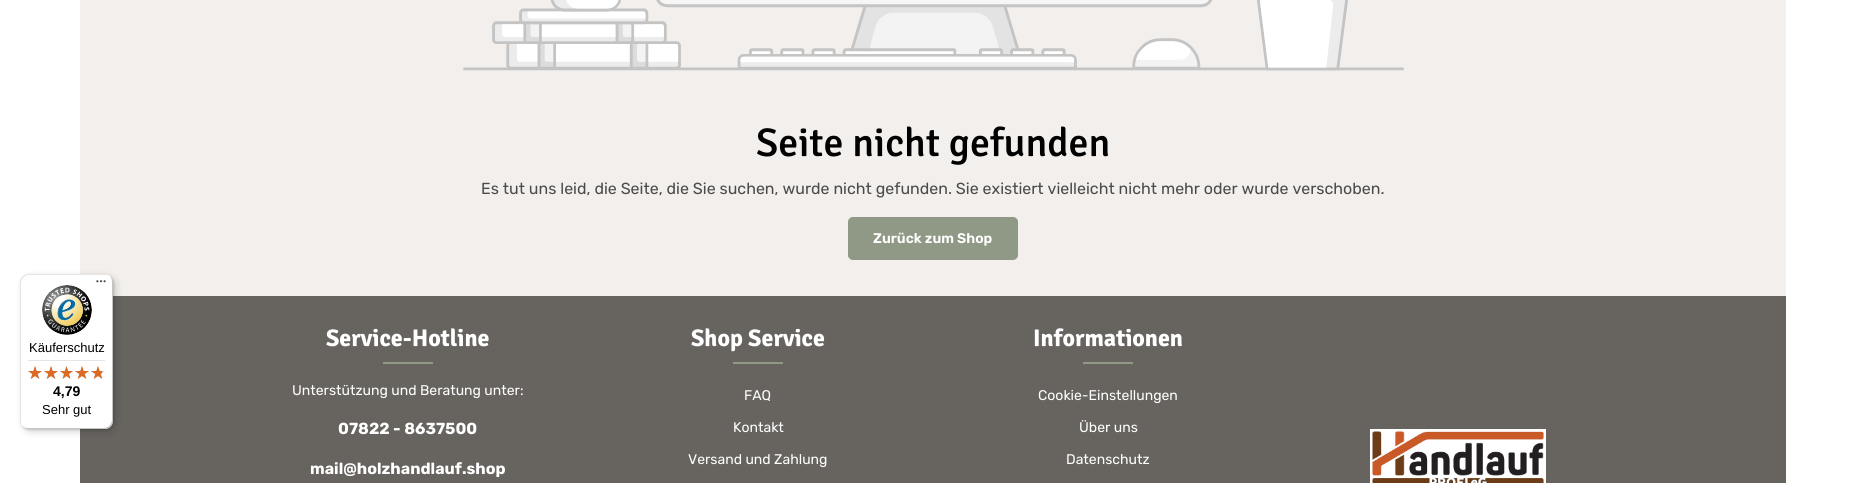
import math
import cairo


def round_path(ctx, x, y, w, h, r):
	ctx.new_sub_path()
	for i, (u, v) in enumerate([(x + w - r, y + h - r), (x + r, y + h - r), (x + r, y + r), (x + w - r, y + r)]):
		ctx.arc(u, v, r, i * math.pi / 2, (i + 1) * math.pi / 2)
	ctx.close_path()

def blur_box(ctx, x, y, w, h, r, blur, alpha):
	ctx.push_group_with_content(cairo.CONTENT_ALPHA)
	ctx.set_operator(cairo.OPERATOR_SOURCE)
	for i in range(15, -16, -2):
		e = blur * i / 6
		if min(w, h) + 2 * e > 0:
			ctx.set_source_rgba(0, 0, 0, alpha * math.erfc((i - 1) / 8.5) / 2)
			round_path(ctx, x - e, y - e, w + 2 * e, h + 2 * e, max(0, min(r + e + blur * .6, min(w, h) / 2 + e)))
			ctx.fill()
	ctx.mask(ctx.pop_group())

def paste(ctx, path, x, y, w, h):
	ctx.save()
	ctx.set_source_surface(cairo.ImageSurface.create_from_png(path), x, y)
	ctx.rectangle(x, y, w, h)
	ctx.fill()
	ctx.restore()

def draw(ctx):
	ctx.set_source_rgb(1, 1, 1)
	ctx.paint()
	ctx.set_source_rgb(0.949, 0.937, 0.922)
	ctx.rectangle(80, 0, 1706, 296)
	ctx.fill()
	ctx.set_source_rgb(0.404, 0.392, 0.376)
	ctx.rectangle(80, 296, 1706, 187)
	ctx.fill()
	ctx.set_source_rgb(0, 0, 0)
	blur_box(ctx, 23, 277, 93, 155, 8, 4, 0.15)
	blur_box(ctx, 21, 275, 93, 155, 8, 1, 0.15)
	ctx.set_source_rgb(1, 1, 1)
	round_path(ctx, 20, 274, 93, 155, 8)
	ctx.fill()
	ctx.set_source_rgba(0, 0, 0, 0.1)
	ctx.new_path()
	ctx.move_to(29, 275)
	ctx.line_to(106, 275)
	ctx.curve_to(108, 275, 110, 276, 112, 278)
	ctx.curve_to(110, 276, 108, 274, 105, 274)
	ctx.line_to(28, 274)
	ctx.curve_to(24, 274, 20, 278, 20, 282)
	ctx.line_to(20, 421)
	ctx.curve_to(20, 424, 22, 426, 24, 428)
	ctx.curve_to(22, 426, 21, 424, 21, 422)
	ctx.line_to(21, 283)
	ctx.curve_to(21, 279, 25, 275, 29, 275)
	ctx.close_path()
	ctx.fill()
	ctx.set_source_rgba(0, 0, 0, 0.2)
	ctx.new_path()
	ctx.move_to(21, 425)
	ctx.curve_to(23, 427, 25, 429, 28, 429)
	ctx.line_to(105, 429)
	ctx.curve_to(109, 429, 113, 425, 113, 421)
	ctx.line_to(113, 282)
	ctx.curve_to(113, 279, 111, 277, 109, 275)
	ctx.curve_to(111, 277, 112, 279, 112, 281)
	ctx.line_to(112, 420)
	ctx.curve_to(112, 424, 108, 428, 104, 428)
	ctx.line_to(27, 428)
	ctx.curve_to(25, 428, 23, 427, 21, 425)
	ctx.close_path()
	ctx.fill()
	ctx.set_source_rgba(0.196, 0.196, 0.196, 0.2)
	ctx.new_path()
	ctx.move_to(22, 426)
	ctx.curve_to(23, 428, 26, 429, 28, 429)
	ctx.line_to(105, 429)
	ctx.curve_to(109, 429, 113, 425, 113, 421)
	ctx.line_to(113, 282)
	ctx.curve_to(113, 280, 112, 277, 110, 276)
	ctx.curve_to(111, 277, 112, 279, 112, 281)
	ctx.line_to(112, 420)
	ctx.curve_to(112, 425, 109, 428, 104, 428)
	ctx.line_to(27, 428)
	ctx.curve_to(25, 428, 23, 427, 22, 426)
	ctx.close_path()
	ctx.fill()
	ctx.set_source_rgba(1, 1, 1, 0.3)
	ctx.new_path()
	ctx.move_to(112, 282)
	ctx.curve_to(112, 277, 109, 274, 104, 274)
	ctx.line_to(105, 274)
	ctx.curve_to(109, 274, 113, 278, 113, 282)
	ctx.line_to(113, 421)
	ctx.curve_to(113, 425, 109, 429, 105, 429)
	ctx.line_to(28, 429)
	ctx.curve_to(24, 429, 20, 425, 20, 421)
	ctx.line_to(20, 420)
	ctx.curve_to(20, 425, 23, 428, 28, 428)
	ctx.line_to(104, 428)
	ctx.curve_to(109, 428, 112, 425, 112, 420)
	ctx.close_path()
	ctx.fill()
	paste(ctx, 'media/1.png', 96, 280, 10, 3)
	paste(ctx, 'media/2.png', 42, 285, 50, 50)
	ctx.select_font_face('Liberation Sans')
	ctx.set_font_size(13)
	ctx.set_source_rgb(0, 0, 0)
	ctx.move_to(29, 352)
	ctx.show_text('Käuferschutz')
	ctx.set_source_rgb(0.898, 0.898, 0.898)
	ctx.rectangle(28, 360, 77, 1)
	ctx.fill()
	paste(ctx, 'media/3.png', 28, 366, 14, 13)
	paste(ctx, 'media/3.png', 44, 366, 14, 13)
	paste(ctx, 'media/4.png', 60, 366, 13, 13)
	paste(ctx, 'media/3.png', 75, 366, 14, 13)
	paste(ctx, 'media/3.png', 91, 366, 14, 13)
	paste(ctx, 'media/5.png', 28, 366, 14, 13)
	paste(ctx, 'media/5.png', 44, 366, 14, 13)
	paste(ctx, 'media/6.png', 60, 366, 13, 13)
	paste(ctx, 'media/5.png', 75, 366, 14, 13)
	paste(ctx, 'media/7.png', 91, 366, 11, 13)
	ctx.select_font_face('Liberation Sans', cairo.FONT_SLANT_NORMAL, cairo.FONT_WEIGHT_BOLD)
	ctx.set_font_size(14)
	ctx.set_source_rgb(0, 0, 0)
	ctx.move_to(53, 396)
	ctx.show_text('4,79')
	ctx.select_font_face('Liberation Sans')
	ctx.set_font_size(13)
	ctx.move_to(42, 414)
	ctx.show_text('Sehr gut')
	paste(ctx, 'media/8.png', 463, 0, 941, 71)
	ctx.select_font_face('Signika Light')
	ctx.set_font_size(40)
	ctx.move_to(756, 156)
	ctx.show_text('Seite nicht gefunden')
	ctx.select_font_face('Rubik Light')
	ctx.set_font_size(16)
	ctx.set_source_rgb(0.29, 0.29, 0.29)
	ctx.move_to(481, 194)
	ctx.show_text('Es tut uns leid, die Seite, die Sie suchen, wurde nicht gefunden. Sie existiert vielleicht nicht mehr oder wurde verschoben.')
	ctx.set_source_rgb(0.565, 0.6, 0.525)
	round_path(ctx, 848.5, 217.5, 169, 42, 4.5)
	ctx.fill_preserve()
	ctx.set_line_width(1)
	ctx.stroke()
	ctx.select_font_face('Rubik SemiBold')
	ctx.set_font_size(14)
	ctx.set_source_rgb(1, 1, 1)
	ctx.move_to(873, 243)
	ctx.show_text('Zurück zum Shop')
	ctx.select_font_face('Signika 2 Light')
	ctx.set_font_size(24)
	ctx.move_to(326, 346)
	ctx.show_text('Service-Hotline')
	ctx.set_source_rgb(0.565, 0.6, 0.525)
	ctx.rectangle(383, 362, 50, 2)
	ctx.fill()
	ctx.select_font_face('Rubik Light')
	ctx.set_font_size(14)
	ctx.set_source_rgb(1, 1, 1)
	ctx.move_to(292, 395)
	ctx.show_text('Unterstützung und Beratung unter:')
	ctx.select_font_face('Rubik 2 Light')
	ctx.set_font_size(16)
	ctx.move_to(338, 434)
	ctx.show_text('07822 - 8637500')
	ctx.move_to(310, 474)
	ctx.show_text('mail@holzhandlauf.shop')
	ctx.select_font_face('Signika 2 Light')
	ctx.set_font_size(24)
	ctx.move_to(691, 346)
	ctx.show_text('Shop Service')
	ctx.set_source_rgb(0.565, 0.6, 0.525)
	ctx.rectangle(733, 362, 50, 2)
	ctx.fill()
	ctx.select_font_face('Rubik Light')
	ctx.set_font_size(14)
	ctx.set_source_rgb(1, 1, 1)
	for x, y, s in [
		(744, 400, 'FAQ'),
		(733, 432, 'Kontakt'),
		(688, 464, 'Versand und Zahlung'),
	]:
		ctx.move_to(x, y)
		ctx.show_text(s)
	ctx.select_font_face('Signika 2 Light')
	ctx.set_font_size(24)
	ctx.move_to(1033, 346)
	ctx.show_text('Informationen')
	ctx.set_source_rgb(0.565, 0.6, 0.525)
	ctx.rectangle(1083, 362, 50, 2)
	ctx.fill()
	ctx.select_font_face('Rubik Light')
	ctx.set_font_size(14)
	ctx.set_source_rgb(1, 1, 1)
	for x, y, s in [
		(1038, 400, 'Cookie-Einstellungen'),
		(1079, 432, 'Über uns'),
		(1066, 464, 'Datenschutz'),
	]:
		ctx.move_to(x, y)
		ctx.show_text(s)
	paste(ctx, 'media/9.png', 1370, 429, 176, 54)


surface = cairo.ImageSurface(cairo.FORMAT_RGB24, 1866, 483)
ctx = cairo.Context(surface)
options = cairo.FontOptions()
options.set_hint_metrics(cairo.HINT_METRICS_OFF)
options.set_hint_style(cairo.HINT_STYLE_NONE)
ctx.set_font_options(options)
ctx.set_miter_limit(4)
draw(ctx)
surface.write_to_png('image.png')
